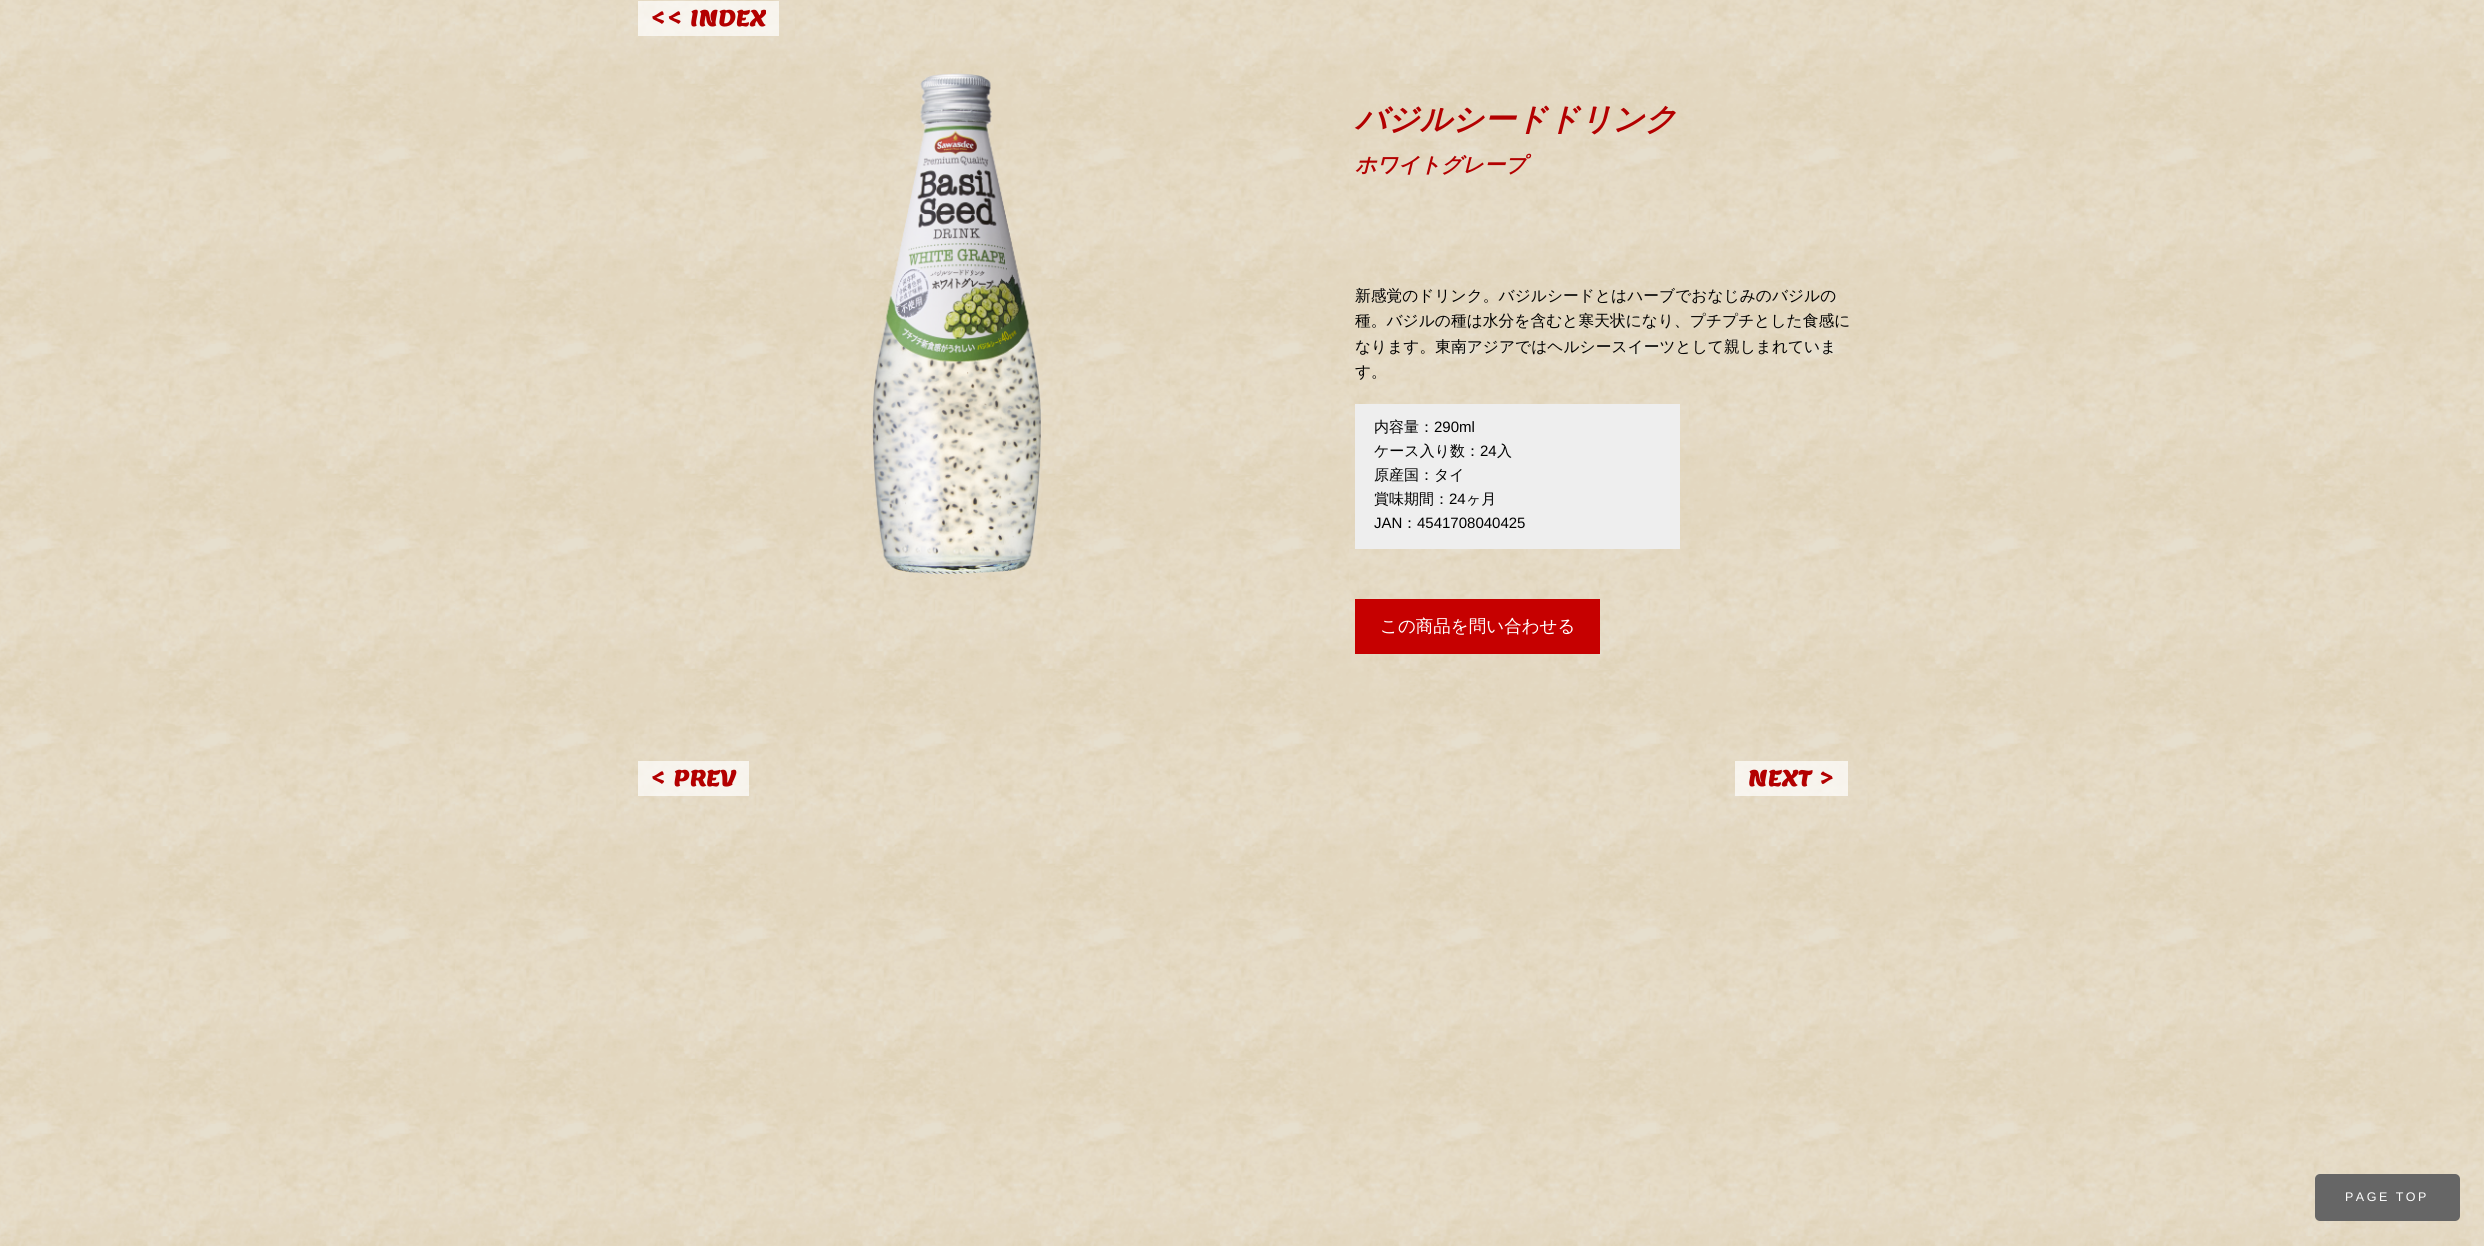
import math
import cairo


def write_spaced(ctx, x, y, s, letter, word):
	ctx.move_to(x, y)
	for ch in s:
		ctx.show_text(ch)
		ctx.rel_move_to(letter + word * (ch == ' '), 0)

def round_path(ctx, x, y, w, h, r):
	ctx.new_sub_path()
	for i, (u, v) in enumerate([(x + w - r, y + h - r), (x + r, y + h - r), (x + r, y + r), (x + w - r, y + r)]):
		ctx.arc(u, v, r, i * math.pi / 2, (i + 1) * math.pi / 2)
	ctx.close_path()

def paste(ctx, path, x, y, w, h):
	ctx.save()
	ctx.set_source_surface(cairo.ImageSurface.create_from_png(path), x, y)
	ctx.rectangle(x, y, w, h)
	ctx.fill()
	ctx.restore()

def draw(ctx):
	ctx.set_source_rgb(1, 1, 1)
	ctx.paint()
	paste(ctx, 'media/1.png', 0, 0, 2484, 1246)
	ctx.set_source_rgba(1, 1, 1, 0.7)
	ctx.rectangle(638, 1, 141, 35)
	ctx.fill()
	ctx.select_font_face('Lemon')
	ctx.set_font_size(22.5)
	ctx.set_source_rgb(0.702, 0, 0)
	ctx.move_to(650, 26)
	ctx.show_text('<< INDEX')
	ctx.set_source_rgba(1, 1, 1, 0.7)
	ctx.rectangle(638, 761, 111, 35)
	ctx.fill()
	ctx.set_source_rgb(0.702, 0, 0)
	ctx.move_to(650, 786)
	ctx.show_text('< PREV')
	ctx.set_source_rgba(1, 1, 1, 0.7)
	ctx.rectangle(1735, 761, 113, 35)
	ctx.fill()
	ctx.set_source_rgb(0.702, 0, 0)
	ctx.move_to(1748, 786)
	ctx.show_text('NEXT >')
	paste(ctx, 'media/2.png', 872, 73, 169, 502)
	ctx.select_font_face('WenQuanYi Zen Hei', cairo.FONT_SLANT_ITALIC, cairo.FONT_WEIGHT_BOLD)
	ctx.set_font_size(31.5)
	ctx.move_to(1355, 130)
	ctx.show_text('バジルシードドリンク')
	ctx.set_font_size(21)
	ctx.move_to(1355, 172)
	ctx.show_text('ホワイトグレープ')
	ctx.select_font_face('WenQuanYi Zen Hei Medium')
	ctx.set_font_size(15.75)
	ctx.set_source_rgb(0, 0, 0)
	for x, y, s in [
		(1355, 301, '新感覚のドリンク。バジルシードとはハーブでおなじみのバジルの'),
		(1355, 326, '種。バジルの種は水分を含むと寒天状になり、プチプチとした食感に'),
		(1355, 352, 'なります。東南アジアではヘルシースイーツとして親しまれていま'),
		(1355, 377, 'す。'),
	]:
		ctx.move_to(x, y)
		ctx.show_text(s)
	ctx.set_source_rgb(0.933, 0.933, 0.933)
	ctx.rectangle(1355, 404, 325, 145)
	ctx.fill()
	ctx.set_font_size(15)
	ctx.set_source_rgb(0, 0, 0)
	ctx.move_to(1374, 432)
	ctx.show_text('内容量：')
	ctx.select_font_face('Liberation Sans')
	ctx.move_to(1434, 432)
	ctx.show_text('290ml')
	ctx.select_font_face('WenQuanYi Zen Hei Medium')
	ctx.move_to(1374, 456)
	ctx.show_text('ケース入り数：')
	ctx.select_font_face('Liberation Sans')
	ctx.move_to(1480, 456)
	ctx.show_text('24')
	ctx.select_font_face('WenQuanYi Zen Hei Medium')
	for x, y, s in [
		(1497, 456, '入'),
		(1374, 480, '原産国：タイ'),
		(1374, 504, '賞味期間：'),
	]:
		ctx.move_to(x, y)
		ctx.show_text(s)
	ctx.select_font_face('Liberation Sans')
	ctx.move_to(1449, 504)
	ctx.show_text('24')
	ctx.select_font_face('WenQuanYi Zen Hei Medium')
	ctx.move_to(1466, 504)
	ctx.show_text('ヶ月')
	ctx.select_font_face('Liberation Sans')
	ctx.move_to(1374, 528)
	ctx.show_text('JAN')
	ctx.select_font_face('WenQuanYi Zen Hei Medium')
	ctx.move_to(1402, 528)
	ctx.show_text('：')
	ctx.select_font_face('Liberation Sans')
	ctx.move_to(1417, 528)
	ctx.show_text('4541708040425')
	ctx.set_source_rgb(0.776, 0, 0)
	ctx.rectangle(1355, 599, 245, 55)
	ctx.fill()
	ctx.select_font_face('WenQuanYi Zen Hei Medium')
	ctx.set_font_size(17.5)
	ctx.set_source_rgb(1, 1, 1)
	ctx.move_to(1380, 632)
	ctx.show_text('この商品を問い合わせる')
	ctx.set_source_rgb(0.4, 0.4, 0.4)
	round_path(ctx, 2315, 1174, 145, 47, 5)
	ctx.fill()
	ctx.select_font_face('Liberation Sans')
	ctx.set_font_size(12.5)
	ctx.set_source_rgb(1, 1, 1)
	write_spaced(ctx, 2345, 1201, 'PAGE TOP', 2.5, 0)


surface = cairo.ImageSurface(cairo.FORMAT_RGB24, 2484, 1246)
ctx = cairo.Context(surface)
options = cairo.FontOptions()
options.set_hint_metrics(cairo.HINT_METRICS_OFF)
options.set_hint_style(cairo.HINT_STYLE_NONE)
ctx.set_font_options(options)
ctx.set_miter_limit(4)
draw(ctx)
surface.write_to_png('image.png')
